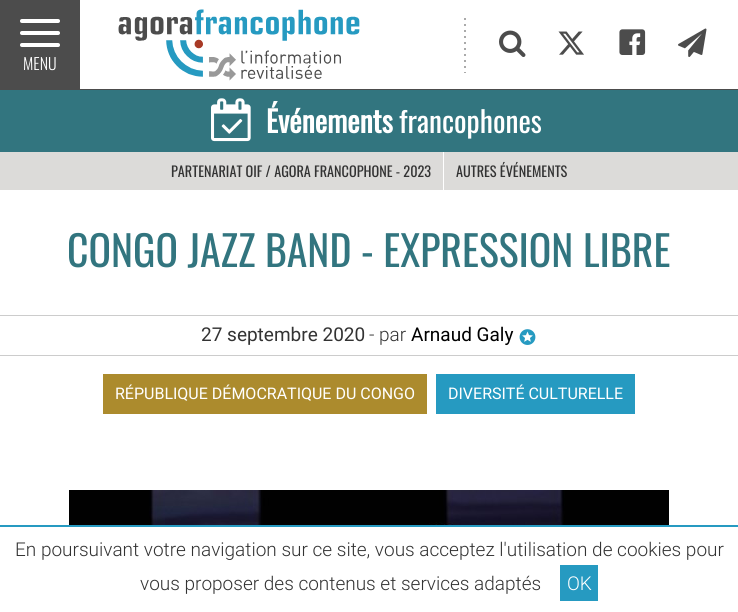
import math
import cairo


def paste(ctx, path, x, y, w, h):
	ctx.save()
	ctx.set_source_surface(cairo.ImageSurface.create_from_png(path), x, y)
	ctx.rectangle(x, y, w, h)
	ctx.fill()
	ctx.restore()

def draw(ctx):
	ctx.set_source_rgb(1, 1, 1)
	ctx.paint()
	ctx.set_source_rgb(0.298, 0.298, 0.298)
	ctx.rectangle(0, 89, 738, 1)
	ctx.fill()
	paste(ctx, 'media/1.png', 118, 9, 242, 72)
	ctx.set_source_rgb(0.667, 0.667, 0.667)
	ctx.rectangle(464, 18, 2, 2)
	ctx.rectangle(464, 24, 2, 2)
	ctx.rectangle(464, 30, 2, 2)
	ctx.rectangle(464, 36, 2, 2)
	ctx.rectangle(464, 42, 2, 2)
	ctx.rectangle(464, 48, 2, 2)
	ctx.rectangle(464, 54, 2, 2)
	ctx.rectangle(464, 60, 2, 2)
	ctx.rectangle(464, 66, 2, 2)
	ctx.rectangle(464, 72, 2, 1)
	ctx.fill()
	paste(ctx, 'media/2.png', 499, 30, 27, 27)
	paste(ctx, 'media/3.png', 558, 31, 26, 24)
	paste(ctx, 'media/4.png', 619, 29, 27, 26)
	paste(ctx, 'media/5.png', 678, 28, 29, 29)
	ctx.set_source_rgb(0.298, 0.298, 0.298)
	ctx.rectangle(0, 0, 80, 89)
	ctx.fill()
	paste(ctx, 'media/6.png', 20, 19, 40, 28)
	ctx.select_font_face('Oswald Light')
	ctx.set_font_size(16)
	ctx.set_source_rgb(1, 1, 1)
	ctx.move_to(23, 70)
	ctx.show_text('MENU')
	ctx.set_source_rgb(0.863, 0.859, 0.851)
	ctx.rectangle(0, 152, 738, 38)
	ctx.fill()
	ctx.set_source_rgb(0.196, 0.459, 0.498)
	ctx.rectangle(0, 90, 738, 62)
	ctx.fill()
	paste(ctx, 'media/7.png', 211, 98, 40, 44)
	ctx.select_font_face('Oswald', cairo.FONT_SLANT_NORMAL, cairo.FONT_WEIGHT_BOLD)
	ctx.set_font_size(29.5)
	ctx.set_source_rgb(1, 1, 1)
	ctx.move_to(266, 133)
	ctx.show_text('Événements')
	ctx.select_font_face('Oswald')
	ctx.move_to(399, 133)
	ctx.show_text('francophones')
	ctx.rectangle(443, 152, 1, 38)
	ctx.fill()
	ctx.set_font_size(14.25)
	ctx.set_source_rgb(0.2, 0.2, 0.2)
	ctx.move_to(171, 177)
	ctx.show_text('PARTENARIAT OIF / AGORA FRANCOPHONE - 2023')
	ctx.move_to(456, 177)
	ctx.show_text('AUTRES ÉVÉNEMENTS')
	ctx.set_font_size(41.75)
	ctx.set_source_rgb(0.196, 0.459, 0.498)
	ctx.move_to(67, 267)
	ctx.show_text('CONGO JAZZ BAND - EXPRESSION LIBRE')
	ctx.set_source_rgb(0.8, 0.8, 0.8)
	ctx.rectangle(0, 315, 738, 1)
	ctx.fill()
	ctx.rectangle(0, 355, 738, 1)
	ctx.fill()
	ctx.select_font_face('Roboto')
	ctx.set_font_size(19)
	ctx.set_source_rgb(0.2, 0.2, 0.2)
	ctx.move_to(201, 341)
	ctx.show_text('27 septembre 2020')
	ctx.select_font_face('Roboto Light')
	ctx.move_to(369, 341)
	ctx.show_text('- par')
	ctx.select_font_face('Roboto')
	ctx.set_source_rgb(0, 0, 0)
	ctx.move_to(411, 341)
	ctx.show_text('Arnaud Galy')
	paste(ctx, 'media/8.png', 519, 329, 17, 16)
	ctx.set_source_rgb(0.675, 0.545, 0.176)
	ctx.rectangle(103, 374, 324, 40)
	ctx.fill()
	ctx.set_font_size(16)
	ctx.set_source_rgb(1, 1, 1)
	ctx.move_to(115, 399)
	ctx.show_text('RÉPUBLIQUE DÉMOCRATIQUE DU CONGO')
	ctx.set_source_rgb(0.149, 0.604, 0.757)
	ctx.rectangle(436, 374, 199, 40)
	ctx.fill()
	ctx.set_source_rgb(1, 1, 1)
	ctx.move_to(448, 399)
	ctx.show_text('DIVERSITÉ CULTURELLE')
	paste(ctx, 'media/9.png', 69, 490, 600, 35)
	ctx.set_source_rgb(0.149, 0.604, 0.757)
	ctx.rectangle(0, 525, 738, 2)
	ctx.fill()
	ctx.select_font_face('Roboto Light')
	ctx.set_font_size(19)
	ctx.set_source_rgb(0.2, 0.2, 0.2)
	ctx.move_to(15, 556)
	ctx.show_text('En poursuivant votre navigation sur ce site, vous acceptez l\'utilisation de cookies pour')
	ctx.move_to(140, 590)
	ctx.show_text('vous proposer des contenus et services adaptés')
	ctx.set_source_rgb(0.149, 0.604, 0.757)
	ctx.rectangle(560, 565, 38, 36)
	ctx.fill()
	ctx.set_source_rgb(1, 1, 1)
	ctx.move_to(567, 590)
	ctx.show_text('OK')


surface = cairo.ImageSurface(cairo.FORMAT_RGB24, 738, 612)
ctx = cairo.Context(surface)
options = cairo.FontOptions()
options.set_hint_metrics(cairo.HINT_METRICS_OFF)
options.set_hint_style(cairo.HINT_STYLE_NONE)
ctx.set_font_options(options)
ctx.set_miter_limit(4)
draw(ctx)
surface.write_to_png('image.png')
